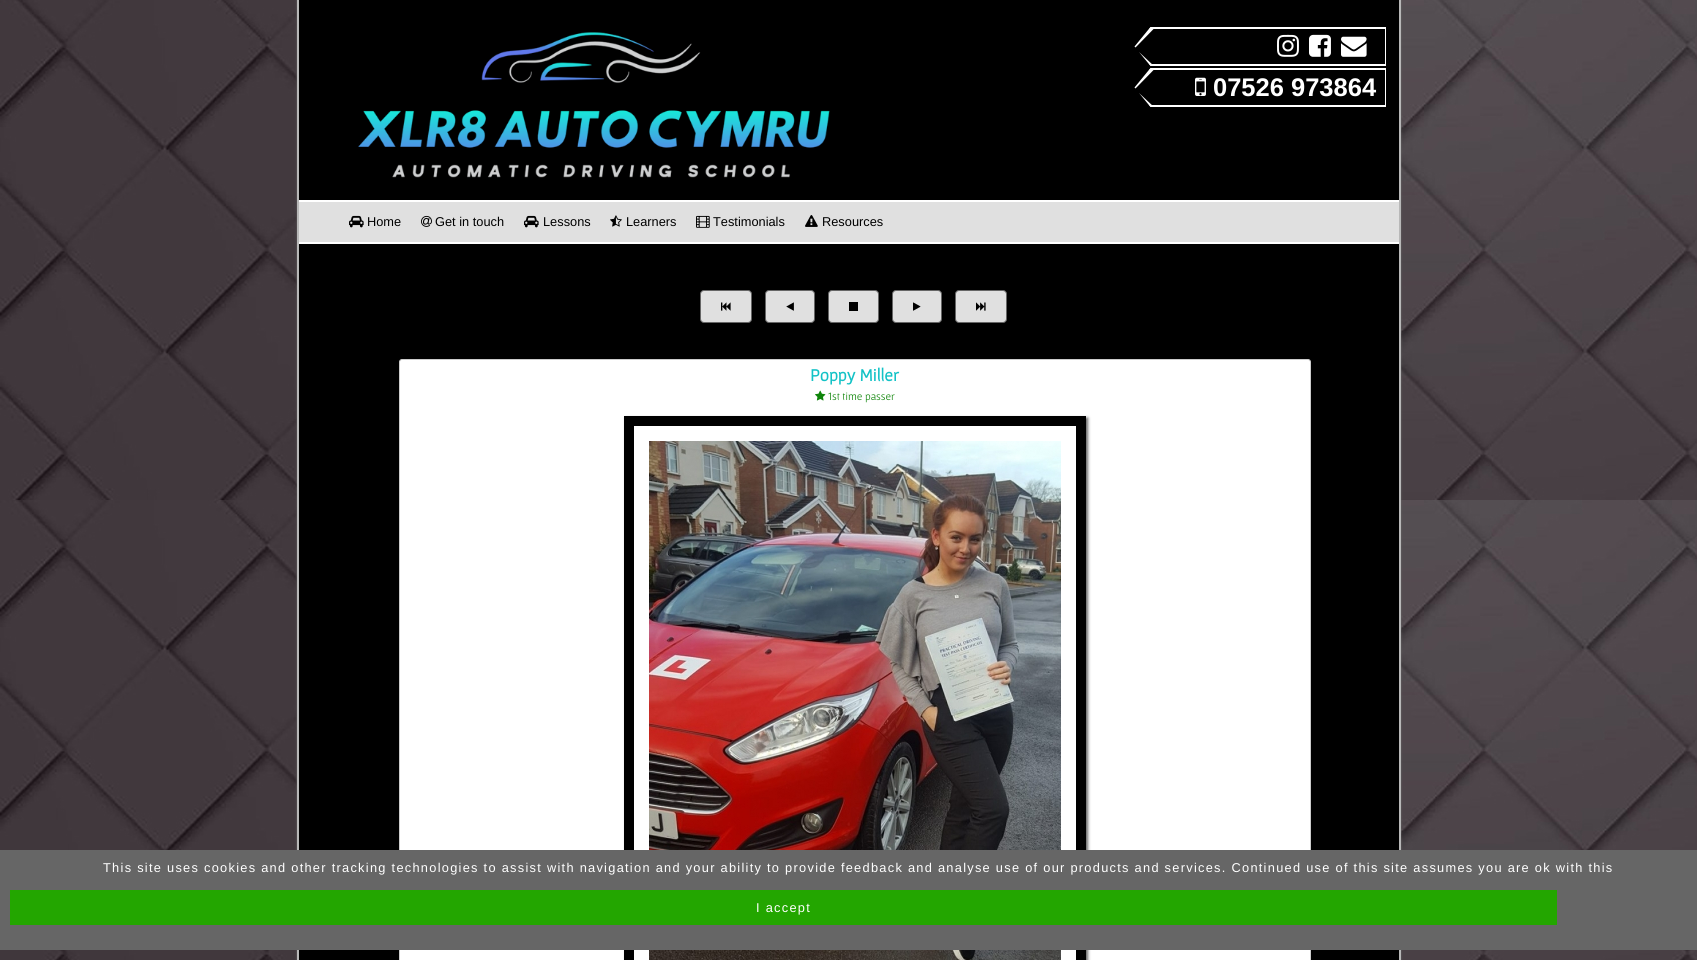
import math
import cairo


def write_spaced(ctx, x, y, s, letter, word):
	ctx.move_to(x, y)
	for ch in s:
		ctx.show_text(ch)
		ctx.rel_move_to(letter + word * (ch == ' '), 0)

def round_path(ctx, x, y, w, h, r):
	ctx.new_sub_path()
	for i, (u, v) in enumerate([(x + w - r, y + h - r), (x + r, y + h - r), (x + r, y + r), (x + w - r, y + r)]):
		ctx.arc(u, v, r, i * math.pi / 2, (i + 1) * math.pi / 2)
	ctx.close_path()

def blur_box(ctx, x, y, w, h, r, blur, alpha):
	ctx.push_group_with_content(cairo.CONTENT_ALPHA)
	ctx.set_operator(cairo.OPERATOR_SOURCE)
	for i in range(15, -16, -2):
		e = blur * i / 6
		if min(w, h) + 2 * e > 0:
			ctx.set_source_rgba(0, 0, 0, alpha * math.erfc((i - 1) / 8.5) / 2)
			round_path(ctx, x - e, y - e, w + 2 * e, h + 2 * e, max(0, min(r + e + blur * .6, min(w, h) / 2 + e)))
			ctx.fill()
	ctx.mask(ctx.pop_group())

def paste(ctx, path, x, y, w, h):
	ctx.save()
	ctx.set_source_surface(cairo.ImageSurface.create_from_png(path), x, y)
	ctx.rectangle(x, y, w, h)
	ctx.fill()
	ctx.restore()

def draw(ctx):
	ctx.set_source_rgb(1, 1, 1)
	ctx.paint()
	paste(ctx, 'media/1.png', 0, 0, 1697, 960)
	ctx.set_source_rgb(0.4, 0.4, 0.4)
	blur_box(ctx, 297, 0, 1104, 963, 0, 1, 1)
	ctx.set_source_rgb(0, 0, 0)
	ctx.rectangle(299, 0, 1100, 960)
	ctx.fill()
	ctx.set_source_rgb(0.722, 0.722, 0.722)
	ctx.rectangle(1399, 0, 2, 960)
	ctx.rectangle(297, 0, 2, 960)
	ctx.fill()
	paste(ctx, 'media/2.png', 358, 32, 472, 146)
	ctx.set_source_rgb(1, 1, 1)
	ctx.set_fill_rule(cairo.FILL_RULE_EVEN_ODD)
	ctx.new_path()
	ctx.move_to(1151, 66)
	ctx.line_to(1386, 66)
	ctx.line_to(1386, 27)
	ctx.line_to(1151, 27)
	ctx.line_to(1149, 29)
	ctx.line_to(1385, 29)
	ctx.line_to(1385, 64)
	ctx.line_to(1149, 64)
	ctx.close_path()
	ctx.move_to(1135, 46)
	ctx.line_to(1135, 47)
	ctx.close_path()
	ctx.fill()
	ctx.set_fill_rule(cairo.FILL_RULE_WINDING)
	ctx.new_path()
	ctx.move_to(1154, 66)
	ctx.line_to(1150.5, 66)
	ctx.line_to(1139, 52)
	ctx.close_path()
	ctx.move_to(1134.5, 46.5)
	ctx.line_to(1150.5, 27)
	ctx.line_to(1155.5, 27)
	ctx.line_to(1135.5, 47.5)
	ctx.close_path()
	ctx.fill()
	paste(ctx, 'media/3.png', 1277, 34, 22, 23)
	paste(ctx, 'media/4.png', 1309, 34, 22, 23)
	paste(ctx, 'media/5.png', 1341, 36, 26, 21)
	ctx.set_fill_rule(cairo.FILL_RULE_EVEN_ODD)
	ctx.new_path()
	ctx.move_to(1151, 107)
	ctx.line_to(1386, 107)
	ctx.line_to(1386, 68)
	ctx.line_to(1151, 68)
	ctx.line_to(1149, 70)
	ctx.line_to(1385, 70)
	ctx.line_to(1385, 105)
	ctx.line_to(1149, 105)
	ctx.close_path()
	ctx.move_to(1135, 88)
	ctx.line_to(1135, 87)
	ctx.close_path()
	ctx.fill()
	ctx.set_fill_rule(cairo.FILL_RULE_WINDING)
	ctx.new_path()
	ctx.move_to(1154, 107)
	ctx.line_to(1150.5, 107)
	ctx.line_to(1139, 93)
	ctx.close_path()
	ctx.move_to(1134.5, 87.5)
	ctx.line_to(1150.5, 68)
	ctx.line_to(1155.5, 68)
	ctx.line_to(1135.5, 88.5)
	ctx.close_path()
	ctx.fill()
	paste(ctx, 'media/6.png', 1195, 77, 11, 19)
	ctx.select_font_face('Liberation Sans', cairo.FONT_SLANT_NORMAL, cairo.FONT_WEIGHT_BOLD)
	ctx.set_font_size(25.5)
	ctx.move_to(1213, 96)
	ctx.show_text('07526 973864')
	ctx.set_source_rgb(0.878, 0.878, 0.878)
	ctx.rectangle(299, 202, 1100, 40)
	ctx.fill()
	ctx.set_source_rgb(1, 1, 1)
	ctx.rectangle(299, 200, 1100, 2)
	ctx.rectangle(299, 242, 1100, 2)
	ctx.fill()
	paste(ctx, 'media/7.png', 349, 215, 15, 13)
	ctx.select_font_face('Liberation Sans')
	ctx.set_font_size(12.8)
	ctx.set_source_rgb(0, 0, 0)
	ctx.move_to(367, 226)
	ctx.show_text('Home')
	paste(ctx, 'media/8.png', 421, 215, 11, 12)
	ctx.move_to(435, 226)
	ctx.show_text('Get in touch')
	paste(ctx, 'media/7.png', 524, 215, 15, 13)
	ctx.move_to(543, 226)
	ctx.show_text('Lessons')
	paste(ctx, 'media/9.png', 610, 215, 12, 12)
	ctx.move_to(626, 226)
	ctx.show_text('Learners')
	paste(ctx, 'media/10.png', 696, 215, 14, 13)
	ctx.move_to(713, 226)
	ctx.show_text('Testimonials')
	paste(ctx, 'media/11.png', 805, 215, 13, 12)
	ctx.move_to(822, 226)
	ctx.show_text('Resources')
	ctx.set_source_rgb(0.878, 0.878, 0.878)
	round_path(ctx, 700.5, 290.5, 51, 32, 3.5)
	ctx.fill_preserve()
	ctx.set_source_rgb(0.4, 0.4, 0.4)
	ctx.set_line_width(1)
	ctx.stroke()
	paste(ctx, 'media/12.png', 721, 302, 10, 9)
	ctx.set_source_rgb(0.878, 0.878, 0.878)
	round_path(ctx, 765.5, 290.5, 49, 32, 3.5)
	ctx.fill_preserve()
	ctx.set_source_rgb(0.4, 0.4, 0.4)
	ctx.stroke()
	paste(ctx, 'media/13.png', 786, 302, 8, 9)
	ctx.set_source_rgb(0.878, 0.878, 0.878)
	round_path(ctx, 828.5, 290.5, 50, 32, 3.5)
	ctx.fill_preserve()
	ctx.set_source_rgb(0.4, 0.4, 0.4)
	ctx.stroke()
	ctx.set_source_rgb(0, 0, 0)
	ctx.rectangle(849, 302, 9, 9)
	ctx.fill()
	ctx.set_source_rgb(0.878, 0.878, 0.878)
	round_path(ctx, 892.5, 290.5, 49, 32, 3.5)
	ctx.fill_preserve()
	ctx.set_source_rgb(0.4, 0.4, 0.4)
	ctx.stroke()
	paste(ctx, 'media/14.png', 913, 302, 8, 9)
	ctx.set_source_rgb(0.878, 0.878, 0.878)
	round_path(ctx, 955.5, 290.5, 51, 32, 3.5)
	ctx.fill_preserve()
	ctx.set_source_rgb(0.4, 0.4, 0.4)
	ctx.stroke()
	paste(ctx, 'media/15.png', 976, 302, 10, 9)
	ctx.set_source_rgb(1, 1, 1)
	round_path(ctx, 399.5, 359.5, 911, 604, 2.5)
	ctx.fill_preserve()
	ctx.set_source_rgb(0.8, 0.8, 0.8)
	ctx.stroke()
	ctx.select_font_face('Gafata', cairo.FONT_SLANT_NORMAL, cairo.FONT_WEIGHT_BOLD)
	ctx.set_font_size(17.5)
	ctx.set_source_rgb(0.078, 0.761, 0.776)
	ctx.move_to(810, 381)
	ctx.show_text('Poppy Miller')
	paste(ctx, 'media/16.png', 815, 390, 11, 11)
	ctx.select_font_face('Gafata')
	ctx.set_font_size(11.25)
	ctx.set_source_rgb(0.059, 0.522, 0.039)
	ctx.move_to(828, 400)
	ctx.show_text('1st time passer')
	ctx.save()
	ctx.set_fill_rule(cairo.FILL_RULE_EVEN_ODD)
	ctx.new_path()
	ctx.move_to(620, 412)
	ctx.line_to(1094, 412)
	ctx.line_to(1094, 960)
	ctx.line_to(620, 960)
	ctx.close_path()
	ctx.move_to(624, 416)
	ctx.line_to(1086, 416)
	ctx.line_to(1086, 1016)
	ctx.line_to(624, 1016)
	ctx.close_path()
	ctx.clip()
	ctx.set_source_rgb(0.4, 0.4, 0.4)
	blur_box(ctx, 626, 418, 462, 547, 0, 1.5, 1)
	ctx.restore()
	ctx.rectangle(629, 421, 452, 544)
	ctx.set_source_rgb(0, 0, 0)
	ctx.set_line_width(10)
	ctx.stroke()
	paste(ctx, 'media/17.png', 649, 441, 412, 519)
	ctx.set_source_rgb(0.4, 0.4, 0.4)
	ctx.rectangle(0, 850, 1697, 100)
	ctx.fill()
	ctx.select_font_face('Liberation Sans')
	ctx.set_font_size(12.8)
	ctx.set_source_rgb(1, 1, 1)
	write_spaced(ctx, 103, 872, 'This site uses cookies and other tracking technologies to assist with navigation and your ability to provide feedback and analyse use of our products and services. Continued use of this site assumes you are ok with this', 1.28, 0)
	ctx.set_source_rgb(0.137, 0.651, 0)
	ctx.rectangle(10, 890, 1547, 35)
	ctx.fill()
	ctx.set_source_rgb(1, 1, 1)
	write_spaced(ctx, 756, 912, 'I accept', 1.28, 0)


surface = cairo.ImageSurface(cairo.FORMAT_RGB24, 1697, 960)
ctx = cairo.Context(surface)
options = cairo.FontOptions()
options.set_hint_metrics(cairo.HINT_METRICS_OFF)
options.set_hint_style(cairo.HINT_STYLE_NONE)
ctx.set_font_options(options)
ctx.set_miter_limit(4)
draw(ctx)
surface.write_to_png('image.png')
